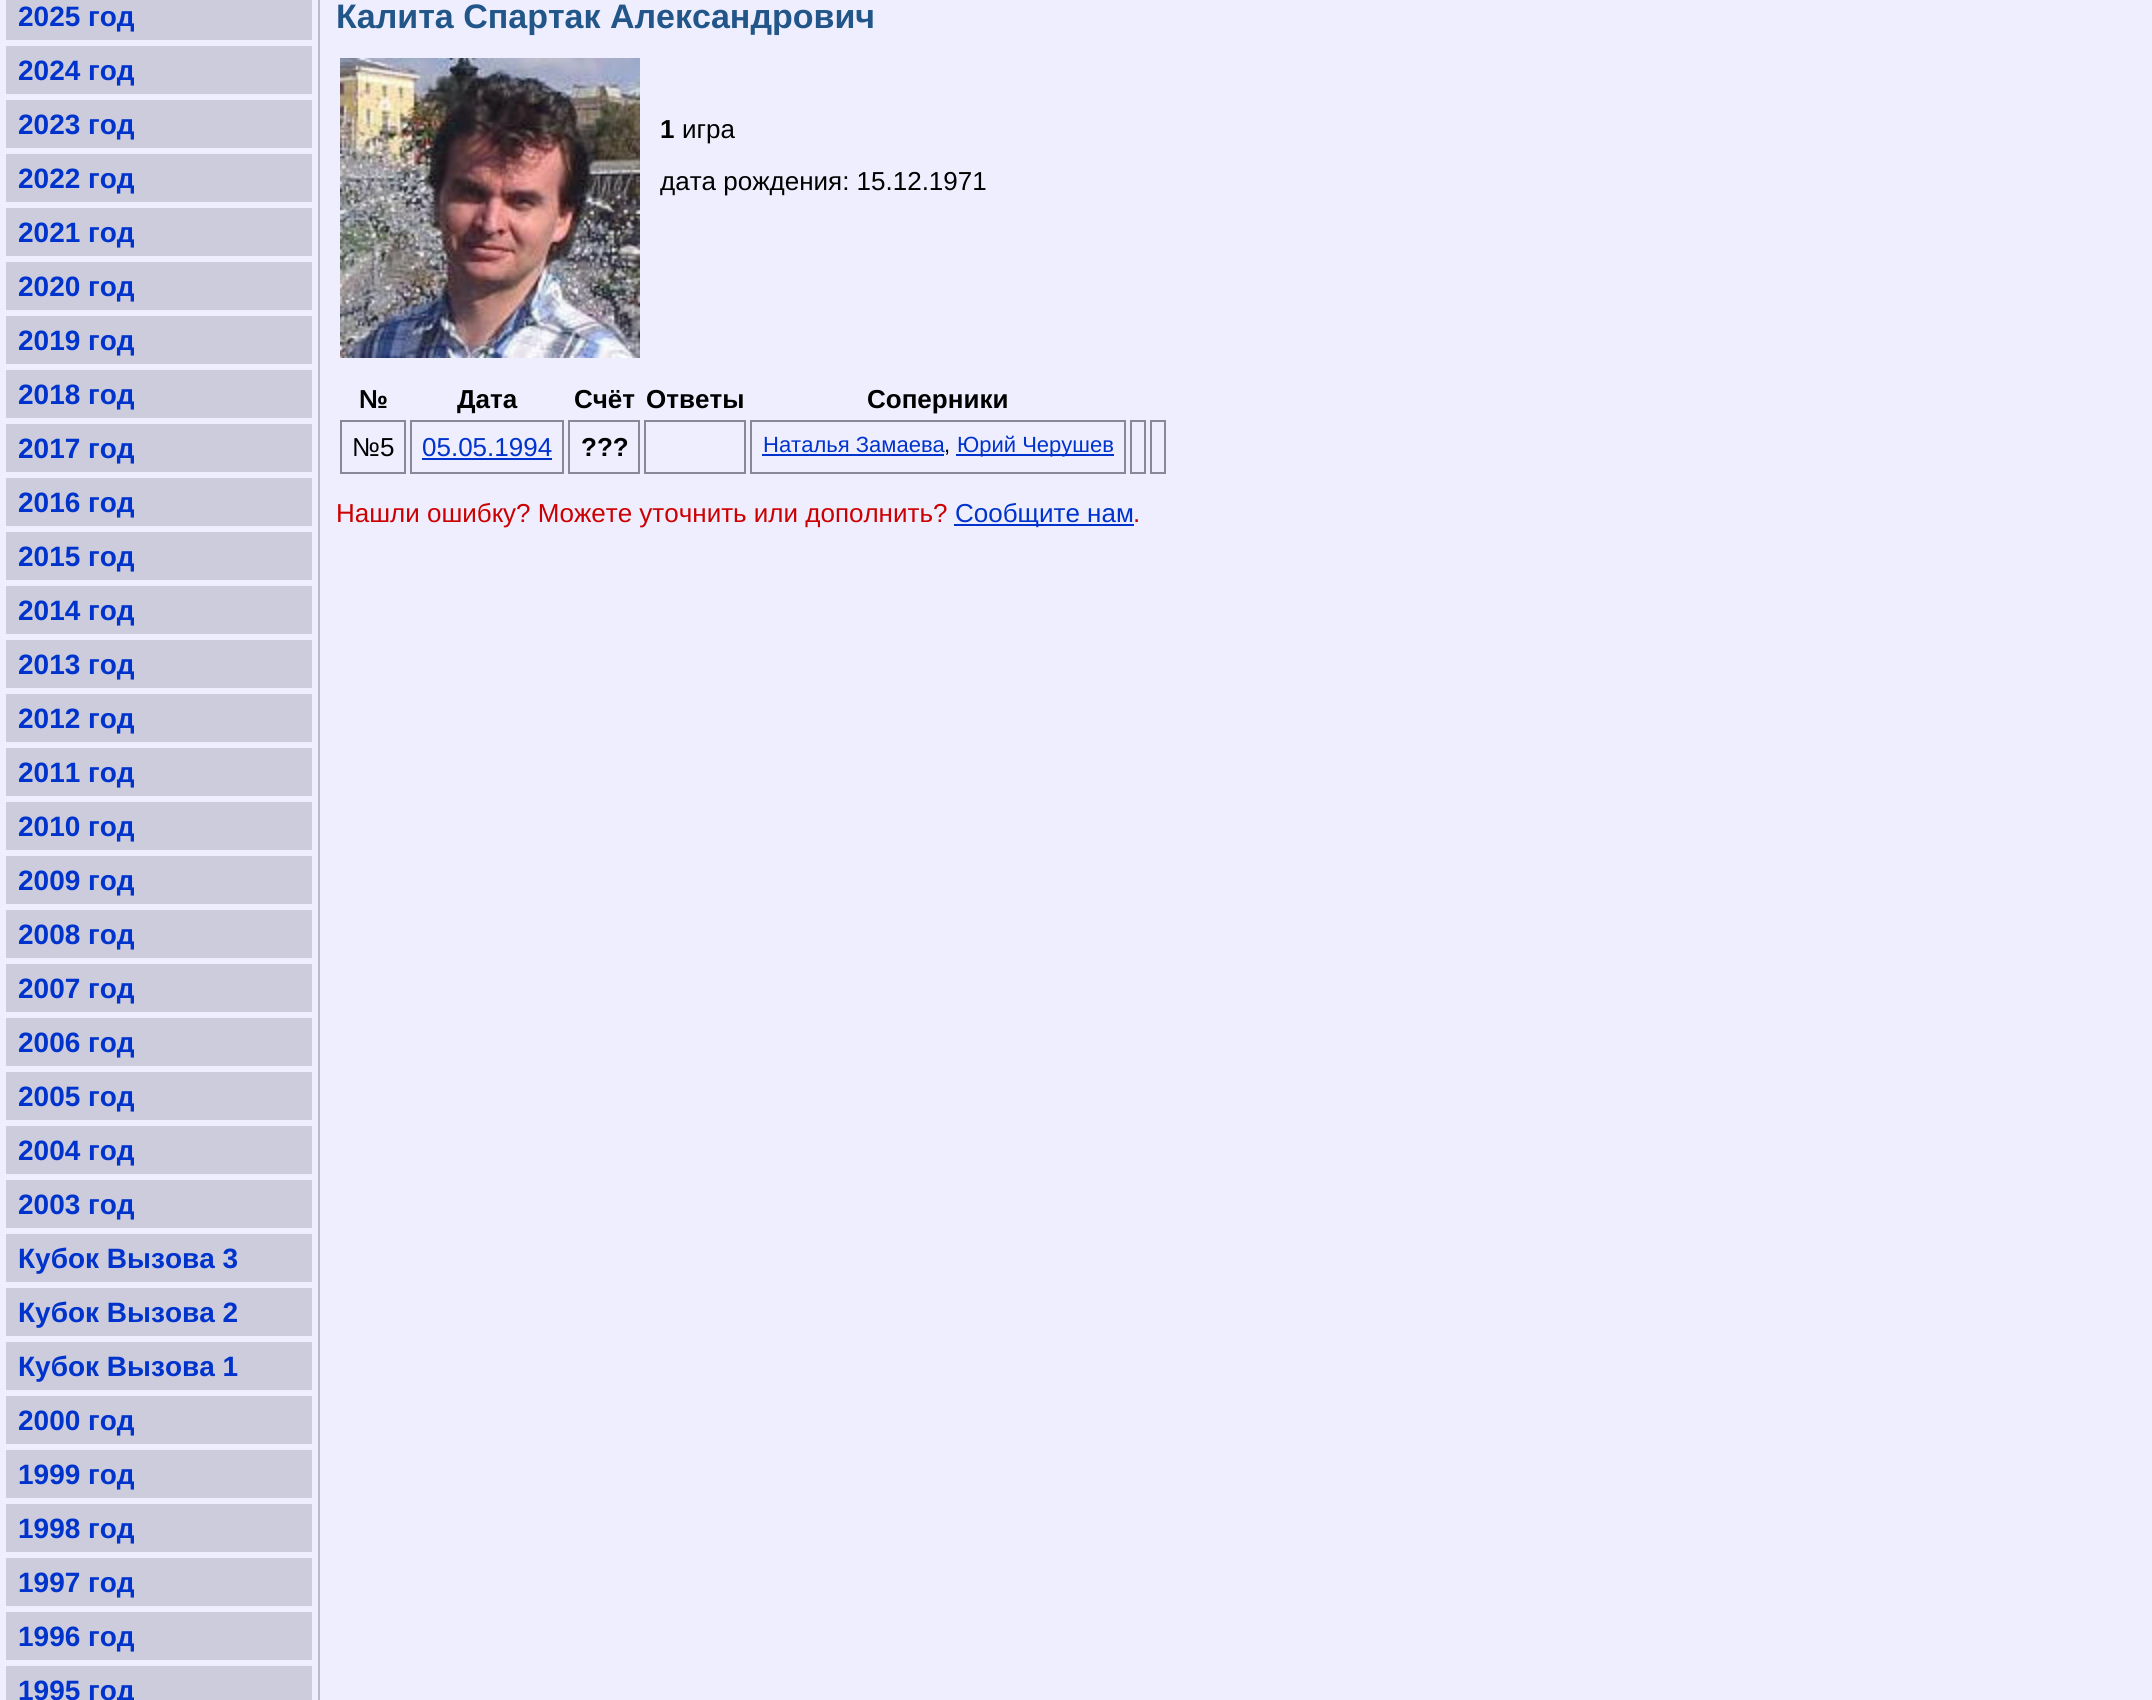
import math
import cairo


def paste(ctx, path, x, y, w, h):
	ctx.save()
	ctx.set_source_surface(cairo.ImageSurface.create_from_png(path), x, y)
	ctx.rectangle(x, y, w, h)
	ctx.fill()
	ctx.restore()

def draw(ctx):
	ctx.set_source_rgb(0.933, 0.933, 1)
	ctx.paint()
	ctx.set_source_rgb(0.733, 0.733, 0.8)
	ctx.rectangle(318, 0, 2, 1700)
	ctx.fill()
	ctx.set_source_rgb(0.8, 0.8, 0.867)
	ctx.rectangle(6, 0, 306, 40)
	ctx.fill()
	ctx.select_font_face('Liberation Sans', cairo.FONT_SLANT_NORMAL, cairo.FONT_WEIGHT_BOLD)
	ctx.set_font_size(28)
	ctx.set_source_rgb(0, 0.2, 0.8)
	ctx.move_to(18, 26)
	ctx.show_text('2025 год')
	ctx.set_source_rgb(0.8, 0.8, 0.867)
	ctx.rectangle(6, 46, 306, 48)
	ctx.fill()
	ctx.set_source_rgb(0, 0.2, 0.8)
	ctx.move_to(18, 80)
	ctx.show_text('2024 год')
	ctx.set_source_rgb(0.8, 0.8, 0.867)
	ctx.rectangle(6, 100, 306, 48)
	ctx.fill()
	ctx.set_source_rgb(0, 0.2, 0.8)
	ctx.move_to(18, 134)
	ctx.show_text('2023 год')
	ctx.set_source_rgb(0.8, 0.8, 0.867)
	ctx.rectangle(6, 154, 306, 48)
	ctx.fill()
	ctx.set_source_rgb(0, 0.2, 0.8)
	ctx.move_to(18, 188)
	ctx.show_text('2022 год')
	ctx.set_source_rgb(0.8, 0.8, 0.867)
	ctx.rectangle(6, 208, 306, 48)
	ctx.fill()
	ctx.set_source_rgb(0, 0.2, 0.8)
	ctx.move_to(18, 242)
	ctx.show_text('2021 год')
	ctx.set_source_rgb(0.8, 0.8, 0.867)
	ctx.rectangle(6, 262, 306, 48)
	ctx.fill()
	ctx.set_source_rgb(0, 0.2, 0.8)
	ctx.move_to(18, 296)
	ctx.show_text('2020 год')
	ctx.set_source_rgb(0.8, 0.8, 0.867)
	ctx.rectangle(6, 316, 306, 48)
	ctx.fill()
	ctx.set_source_rgb(0, 0.2, 0.8)
	ctx.move_to(18, 350)
	ctx.show_text('2019 год')
	ctx.set_source_rgb(0.8, 0.8, 0.867)
	ctx.rectangle(6, 370, 306, 48)
	ctx.fill()
	ctx.set_source_rgb(0, 0.2, 0.8)
	ctx.move_to(18, 404)
	ctx.show_text('2018 год')
	ctx.set_source_rgb(0.8, 0.8, 0.867)
	ctx.rectangle(6, 424, 306, 48)
	ctx.fill()
	ctx.set_source_rgb(0, 0.2, 0.8)
	ctx.move_to(18, 458)
	ctx.show_text('2017 год')
	ctx.set_source_rgb(0.8, 0.8, 0.867)
	ctx.rectangle(6, 478, 306, 48)
	ctx.fill()
	ctx.set_source_rgb(0, 0.2, 0.8)
	ctx.move_to(18, 512)
	ctx.show_text('2016 год')
	ctx.set_source_rgb(0.8, 0.8, 0.867)
	ctx.rectangle(6, 532, 306, 48)
	ctx.fill()
	ctx.set_source_rgb(0, 0.2, 0.8)
	ctx.move_to(18, 566)
	ctx.show_text('2015 год')
	ctx.set_source_rgb(0.8, 0.8, 0.867)
	ctx.rectangle(6, 586, 306, 48)
	ctx.fill()
	ctx.set_source_rgb(0, 0.2, 0.8)
	ctx.move_to(18, 620)
	ctx.show_text('2014 год')
	ctx.set_source_rgb(0.8, 0.8, 0.867)
	ctx.rectangle(6, 640, 306, 48)
	ctx.fill()
	ctx.set_source_rgb(0, 0.2, 0.8)
	ctx.move_to(18, 674)
	ctx.show_text('2013 год')
	ctx.set_source_rgb(0.8, 0.8, 0.867)
	ctx.rectangle(6, 694, 306, 48)
	ctx.fill()
	ctx.set_source_rgb(0, 0.2, 0.8)
	ctx.move_to(18, 728)
	ctx.show_text('2012 год')
	ctx.set_source_rgb(0.8, 0.8, 0.867)
	ctx.rectangle(6, 748, 306, 48)
	ctx.fill()
	ctx.set_source_rgb(0, 0.2, 0.8)
	ctx.move_to(18, 782)
	ctx.show_text('2011 год')
	ctx.set_source_rgb(0.8, 0.8, 0.867)
	ctx.rectangle(6, 802, 306, 48)
	ctx.fill()
	ctx.set_source_rgb(0, 0.2, 0.8)
	ctx.move_to(18, 836)
	ctx.show_text('2010 год')
	ctx.set_source_rgb(0.8, 0.8, 0.867)
	ctx.rectangle(6, 856, 306, 48)
	ctx.fill()
	ctx.set_source_rgb(0, 0.2, 0.8)
	ctx.move_to(18, 890)
	ctx.show_text('2009 год')
	ctx.set_source_rgb(0.8, 0.8, 0.867)
	ctx.rectangle(6, 910, 306, 48)
	ctx.fill()
	ctx.set_source_rgb(0, 0.2, 0.8)
	ctx.move_to(18, 944)
	ctx.show_text('2008 год')
	ctx.set_source_rgb(0.8, 0.8, 0.867)
	ctx.rectangle(6, 964, 306, 48)
	ctx.fill()
	ctx.set_source_rgb(0, 0.2, 0.8)
	ctx.move_to(18, 998)
	ctx.show_text('2007 год')
	ctx.set_source_rgb(0.8, 0.8, 0.867)
	ctx.rectangle(6, 1018, 306, 48)
	ctx.fill()
	ctx.set_source_rgb(0, 0.2, 0.8)
	ctx.move_to(18, 1052)
	ctx.show_text('2006 год')
	ctx.set_source_rgb(0.8, 0.8, 0.867)
	ctx.rectangle(6, 1072, 306, 48)
	ctx.fill()
	ctx.set_source_rgb(0, 0.2, 0.8)
	ctx.move_to(18, 1106)
	ctx.show_text('2005 год')
	ctx.set_source_rgb(0.8, 0.8, 0.867)
	ctx.rectangle(6, 1126, 306, 48)
	ctx.fill()
	ctx.set_source_rgb(0, 0.2, 0.8)
	ctx.move_to(18, 1160)
	ctx.show_text('2004 год')
	ctx.set_source_rgb(0.8, 0.8, 0.867)
	ctx.rectangle(6, 1180, 306, 48)
	ctx.fill()
	ctx.set_source_rgb(0, 0.2, 0.8)
	ctx.move_to(18, 1214)
	ctx.show_text('2003 год')
	ctx.set_source_rgb(0.8, 0.8, 0.867)
	ctx.rectangle(6, 1234, 306, 48)
	ctx.fill()
	ctx.set_source_rgb(0, 0.2, 0.8)
	ctx.move_to(18, 1268)
	ctx.show_text('Кубок Вызова 3')
	ctx.set_source_rgb(0.8, 0.8, 0.867)
	ctx.rectangle(6, 1288, 306, 48)
	ctx.fill()
	ctx.set_source_rgb(0, 0.2, 0.8)
	ctx.move_to(18, 1322)
	ctx.show_text('Кубок Вызова 2')
	ctx.set_source_rgb(0.8, 0.8, 0.867)
	ctx.rectangle(6, 1342, 306, 48)
	ctx.fill()
	ctx.set_source_rgb(0, 0.2, 0.8)
	ctx.move_to(18, 1376)
	ctx.show_text('Кубок Вызова 1')
	ctx.set_source_rgb(0.8, 0.8, 0.867)
	ctx.rectangle(6, 1396, 306, 48)
	ctx.fill()
	ctx.set_source_rgb(0, 0.2, 0.8)
	ctx.move_to(18, 1430)
	ctx.show_text('2000 год')
	ctx.set_source_rgb(0.8, 0.8, 0.867)
	ctx.rectangle(6, 1450, 306, 48)
	ctx.fill()
	ctx.set_source_rgb(0, 0.2, 0.8)
	ctx.move_to(18, 1484)
	ctx.show_text('1999 год')
	ctx.set_source_rgb(0.8, 0.8, 0.867)
	ctx.rectangle(6, 1504, 306, 48)
	ctx.fill()
	ctx.set_source_rgb(0, 0.2, 0.8)
	ctx.move_to(18, 1538)
	ctx.show_text('1998 год')
	ctx.set_source_rgb(0.8, 0.8, 0.867)
	ctx.rectangle(6, 1558, 306, 48)
	ctx.fill()
	ctx.set_source_rgb(0, 0.2, 0.8)
	ctx.move_to(18, 1592)
	ctx.show_text('1997 год')
	ctx.set_source_rgb(0.8, 0.8, 0.867)
	ctx.rectangle(6, 1612, 306, 48)
	ctx.fill()
	ctx.set_source_rgb(0, 0.2, 0.8)
	ctx.move_to(18, 1646)
	ctx.show_text('1996 год')
	ctx.set_source_rgb(0.8, 0.8, 0.867)
	ctx.rectangle(6, 1666, 306, 34)
	ctx.fill()
	ctx.set_source_rgb(0, 0.2, 0.8)
	ctx.move_to(18, 1700)
	ctx.show_text('1995 год')
	ctx.set_font_size(34)
	ctx.set_source_rgb(0.133, 0.333, 0.533)
	ctx.move_to(336, 28)
	ctx.show_text('Калита Спартак Александрович')
	paste(ctx, 'media/1.png', 340, 58, 300, 300)
	ctx.set_font_size(26)
	ctx.set_source_rgb(0, 0, 0)
	ctx.move_to(660, 138)
	ctx.show_text('1')
	ctx.select_font_face('Liberation Sans')
	ctx.move_to(682, 138)
	ctx.show_text('игрa')
	ctx.move_to(660, 190)
	ctx.show_text('дата рождения: 15.12.1971')
	ctx.select_font_face('Liberation Sans', cairo.FONT_SLANT_NORMAL, cairo.FONT_WEIGHT_BOLD)
	for x, y, s in [
		(359, 408, '№'),
		(457, 408, 'Дата'),
		(574, 408, 'Счёт'),
		(646, 408, 'Ответы'),
		(867, 408, 'Соперники'),
	]:
		ctx.move_to(x, y)
		ctx.show_text(s)
	ctx.rectangle(341, 421, 64, 52)
	ctx.set_source_rgb(0.533, 0.533, 0.6)
	ctx.stroke()
	ctx.select_font_face('Liberation Sans')
	ctx.set_source_rgb(0, 0, 0)
	ctx.move_to(352, 456)
	ctx.show_text('№5')
	ctx.rectangle(411, 421, 152, 52)
	ctx.set_source_rgb(0.533, 0.533, 0.6)
	ctx.stroke()
	ctx.set_source_rgb(0, 0.2, 0.8)
	ctx.move_to(422, 456)
	ctx.show_text('05.05.1994')
	ctx.rectangle(422, 458, 130, 2)
	ctx.fill()
	ctx.rectangle(569, 421, 70, 52)
	ctx.set_source_rgb(0.533, 0.533, 0.6)
	ctx.stroke()
	ctx.select_font_face('Liberation Sans', cairo.FONT_SLANT_NORMAL, cairo.FONT_WEIGHT_BOLD)
	ctx.set_source_rgb(0, 0, 0)
	ctx.move_to(581, 456)
	ctx.show_text('???')
	ctx.rectangle(645, 421, 100, 52)
	ctx.set_source_rgb(0.533, 0.533, 0.6)
	ctx.stroke()
	ctx.rectangle(751, 421, 374, 52)
	ctx.stroke()
	ctx.select_font_face('Liberation Sans')
	ctx.set_font_size(22)
	ctx.set_source_rgb(0, 0.2, 0.8)
	ctx.move_to(763, 452)
	ctx.show_text('Наталья Замаева')
	ctx.rectangle(762, 454, 182, 2)
	ctx.fill()
	ctx.set_source_rgb(0, 0, 0)
	ctx.move_to(944, 452)
	ctx.show_text(',')
	ctx.set_source_rgb(0, 0.2, 0.8)
	ctx.rectangle(956, 454, 158, 2)
	ctx.fill()
	ctx.move_to(957, 452)
	ctx.show_text('Юрий Черушев')
	ctx.rectangle(1131, 421, 14, 52)
	ctx.set_source_rgb(0.533, 0.533, 0.6)
	ctx.stroke()
	ctx.rectangle(1151, 421, 14, 52)
	ctx.stroke()
	ctx.set_font_size(26)
	ctx.set_source_rgb(0.8, 0, 0)
	ctx.move_to(336, 522)
	ctx.show_text('Нашли ошибку? Можете уточнить или дополнить?')
	ctx.set_source_rgb(0, 0.2, 0.8)
	ctx.rectangle(954, 524, 180, 2)
	ctx.fill()
	ctx.move_to(955, 522)
	ctx.show_text('Сообщите нам')
	ctx.set_source_rgb(0.8, 0, 0)
	ctx.move_to(1133, 522)
	ctx.show_text('.')


surface = cairo.ImageSurface(cairo.FORMAT_RGB24, 2152, 1700)
ctx = cairo.Context(surface)
options = cairo.FontOptions()
options.set_hint_metrics(cairo.HINT_METRICS_OFF)
options.set_hint_style(cairo.HINT_STYLE_NONE)
ctx.set_font_options(options)
ctx.set_miter_limit(4)
draw(ctx)
surface.write_to_png('image.png')
